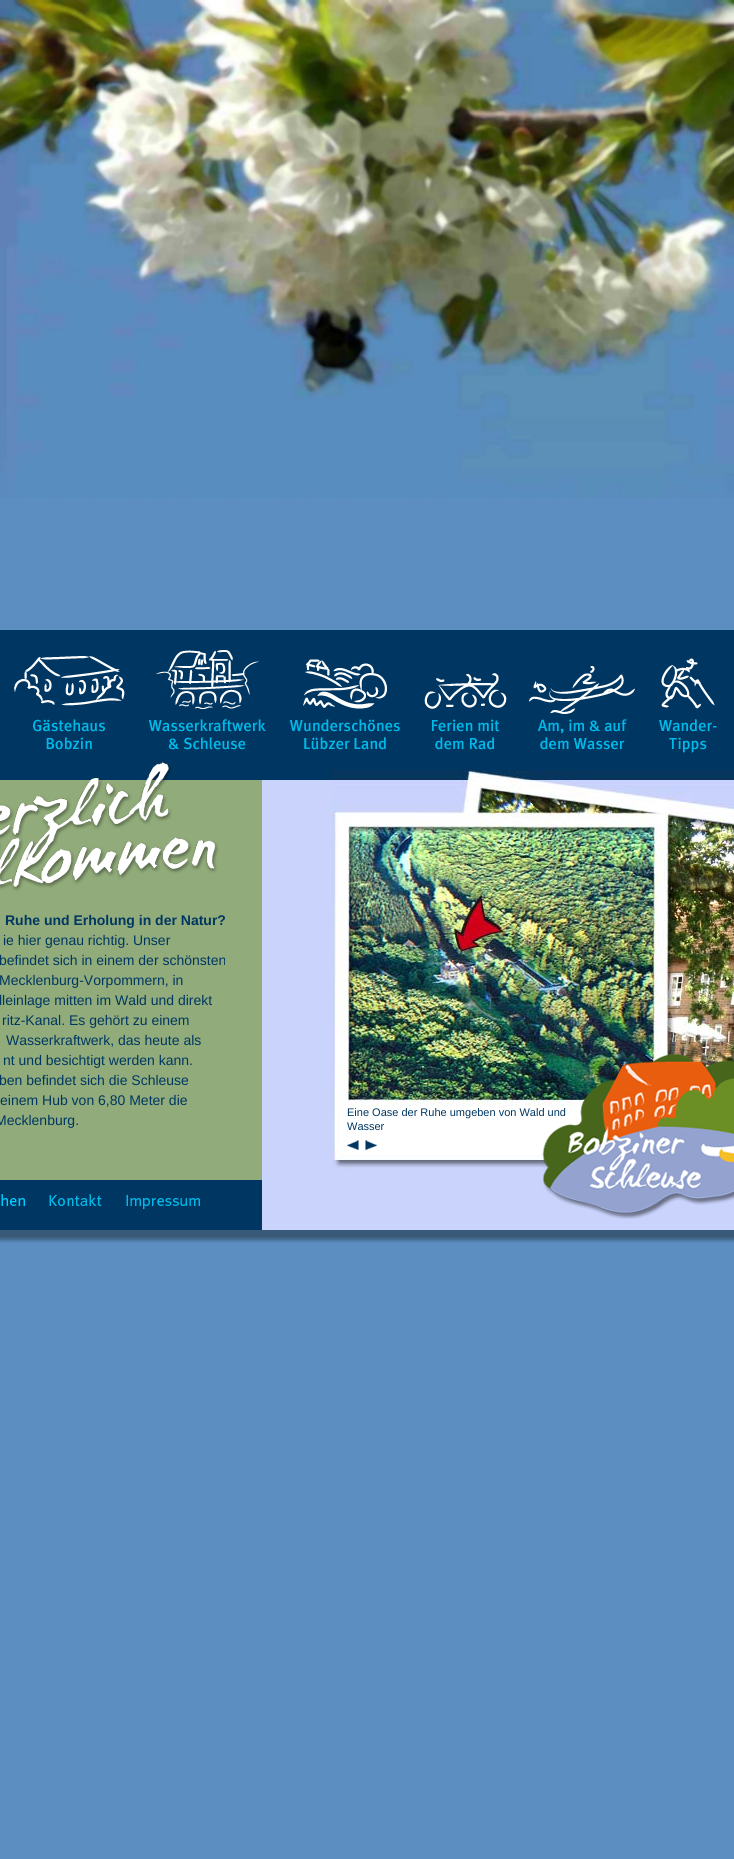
import math
import cairo


def paste(ctx, path, x, y, w, h):
	ctx.save()
	ctx.set_source_surface(cairo.ImageSurface.create_from_png(path), x, y)
	ctx.rectangle(x, y, w, h)
	ctx.fill()
	ctx.restore()

def draw(ctx):
	ctx.set_source_rgb(0.361, 0.557, 0.757)
	ctx.paint()
	paste(ctx, 'media/1.png', 0, 0, 734, 498)
	ctx.set_source_rgb(0, 0.216, 0.384)
	ctx.rectangle(0, 630, 734, 150)
	ctx.fill()
	paste(ctx, 'media/2.png', 14, 656, 111, 94)
	paste(ctx, 'media/3.png', 148, 650, 118, 100)
	paste(ctx, 'media/4.png', 289, 659, 111, 91)
	paste(ctx, 'media/5.png', 424, 673, 83, 77)
	paste(ctx, 'media/6.png', 529, 666, 106, 84)
	paste(ctx, 'media/7.png', 659, 658, 58, 95)
	ctx.set_source_rgb(0.569, 0.675, 0.478)
	ctx.rectangle(0, 780, 262, 400)
	ctx.fill()
	paste(ctx, 'media/8.png', 0, 762, 219, 129)
	ctx.select_font_face('Liberation Sans', cairo.FONT_SLANT_NORMAL, cairo.FONT_WEIGHT_BOLD)
	ctx.set_font_size(14)
	ctx.set_source_rgb(0, 0.216, 0.384)
	ctx.move_to(5, 925)
	ctx.show_text('Ruhe und Erholung in der Natur?')
	ctx.select_font_face('Liberation Sans')
	for x, y, s in [
		(3, 945, 'ie hier genau richtig. Unser'),
		(-1, 965, 'befindet sich in einem der schönsten'),
		(-1, 985, 'Mecklenburg-Vorpommern, in'),
		(-1, 1005, 'lleinlage mitten im Wald und direkt'),
		(2, 1025, 'ritz-Kanal. Es gehört zu einem'),
		(6, 1045, 'Wasserkraftwerk, das heute als'),
		(3, 1065, 'nt und besichtigt werden kann.'),
		(-1, 1085, 'ben befindet sich die Schleuse'),
		(0, 1105, 'einem Hub von 6,80 Meter die'),
		(-5, 1125, 'Mecklenburg.'),
	]:
		ctx.move_to(x, y)
		ctx.show_text(s)
	ctx.rectangle(0, 1180, 262, 50)
	ctx.fill()
	paste(ctx, 'media/9.png', 0, 1194, 25, 12)
	paste(ctx, 'media/10.png', 49, 1194, 53, 12)
	paste(ctx, 'media/11.png', 126, 1195, 74, 15)
	ctx.set_source_rgb(0.788, 0.827, 0.988)
	ctx.rectangle(262, 780, 472, 450)
	ctx.fill()
	paste(ctx, 'media/12.png', 332, 770, 402, 400)
	ctx.set_font_size(11)
	ctx.set_source_rgb(0, 0.216, 0.384)
	ctx.move_to(347, 1116)
	ctx.show_text('Eine Oase der Ruhe umgeben von Wald und')
	ctx.move_to(347, 1130)
	ctx.show_text('Wasser')
	paste(ctx, 'media/13.png', 347, 1140, 12, 10)
	paste(ctx, 'media/14.png', 365, 1140, 12, 10)
	paste(ctx, 'media/15.png', 542, 1054, 192, 165)
	paste(ctx, 'media/16.png', 0, 1230, 734, 13)


surface = cairo.ImageSurface(cairo.FORMAT_RGB24, 734, 1859)
ctx = cairo.Context(surface)
options = cairo.FontOptions()
options.set_hint_metrics(cairo.HINT_METRICS_OFF)
options.set_hint_style(cairo.HINT_STYLE_NONE)
ctx.set_font_options(options)
ctx.set_miter_limit(4)
draw(ctx)
surface.write_to_png('image.png')
